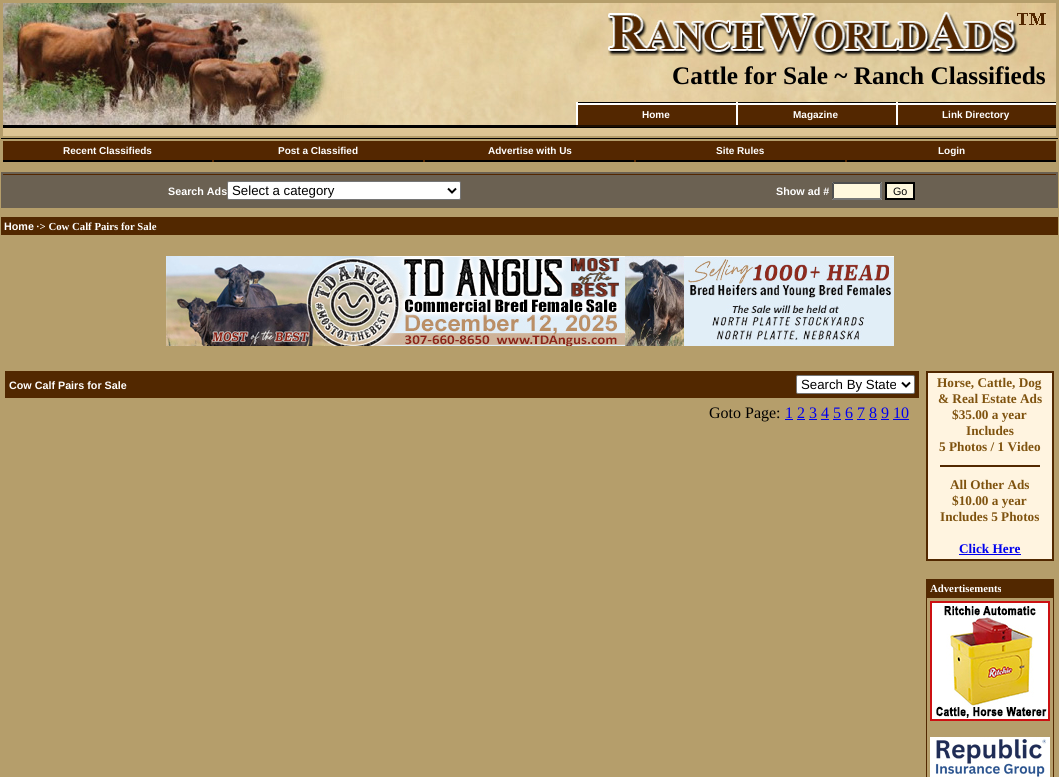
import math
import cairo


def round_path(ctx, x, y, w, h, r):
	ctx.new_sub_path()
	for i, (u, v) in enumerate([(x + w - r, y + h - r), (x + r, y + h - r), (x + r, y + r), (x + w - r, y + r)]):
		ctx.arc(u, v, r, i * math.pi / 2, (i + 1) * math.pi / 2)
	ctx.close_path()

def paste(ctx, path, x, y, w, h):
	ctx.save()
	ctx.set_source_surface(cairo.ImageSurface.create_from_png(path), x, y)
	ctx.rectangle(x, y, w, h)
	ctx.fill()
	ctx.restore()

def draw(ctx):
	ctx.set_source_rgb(0.71, 0.62, 0.42)
	ctx.paint()
	ctx.set_source_rgb(0.867, 0.773, 0.58)
	ctx.rectangle(3, 128, 1053, 8)
	ctx.fill()
	paste(ctx, 'media/1.png', 3, 3, 1053, 122)
	paste(ctx, 'media/2.png', 608, 12, 438, 44)
	ctx.select_font_face('Liberation Serif', cairo.FONT_SLANT_NORMAL, cairo.FONT_WEIGHT_BOLD)
	ctx.set_font_size(25.3)
	ctx.set_source_rgb(0, 0, 0)
	ctx.move_to(672, 84)
	ctx.show_text('Cattle for Sale ~ Ranch Classifieds')
	paste(ctx, 'media/3.png', 576, 102, 160, 25)
	ctx.select_font_face('Liberation Sans', cairo.FONT_SLANT_NORMAL, cairo.FONT_WEIGHT_BOLD)
	ctx.set_font_size(10)
	ctx.set_source_rgb(1, 1, 1)
	ctx.move_to(642, 118)
	ctx.show_text('Home')
	paste(ctx, 'media/3.png', 736, 102, 160, 25)
	ctx.move_to(793, 118)
	ctx.show_text('Magazine')
	paste(ctx, 'media/3.png', 896, 102, 160, 25)
	ctx.move_to(942, 118)
	ctx.show_text('Link Directory')
	ctx.set_source_rgb(0, 0, 0)
	ctx.rectangle(3, 125, 573, 2)
	ctx.rectangle(3, 127, 1053, 1)
	ctx.rectangle(1, 138, 1057, 1)
	ctx.fill()
	ctx.set_source_rgb(0.329, 0.153, 0)
	ctx.rectangle(3, 141, 1053, 21)
	ctx.fill()
	ctx.set_source_rgb(0, 0, 0)
	ctx.rectangle(3, 160, 209, 2)
	ctx.fill()
	ctx.set_source_rgb(1, 1, 1)
	ctx.move_to(63, 154)
	ctx.show_text('Recent Classifieds')
	ctx.set_source_rgb(0, 0, 0)
	ctx.rectangle(214, 160, 209, 2)
	ctx.fill()
	ctx.set_source_rgb(1, 1, 1)
	ctx.move_to(278, 154)
	ctx.show_text('Post a Classified')
	ctx.set_source_rgb(0, 0, 0)
	ctx.rectangle(425, 160, 209, 2)
	ctx.fill()
	ctx.set_source_rgb(1, 1, 1)
	ctx.move_to(488, 154)
	ctx.show_text('Advertise with Us')
	ctx.set_source_rgb(0, 0, 0)
	ctx.rectangle(636, 160, 209, 2)
	ctx.fill()
	ctx.set_source_rgb(1, 1, 1)
	ctx.move_to(716, 154)
	ctx.show_text('Site Rules')
	ctx.set_source_rgb(0, 0, 0)
	ctx.rectangle(847, 160, 209, 2)
	ctx.fill()
	ctx.set_source_rgb(1, 1, 1)
	ctx.move_to(938, 154)
	ctx.show_text('Login')
	ctx.set_source_rgb(0.42, 0.38, 0.322)
	ctx.rectangle(1, 172, 1057, 36)
	ctx.fill()
	ctx.set_source_rgb(0.329, 0.153, 0)
	ctx.rectangle(3, 174, 1053, 1)
	ctx.fill()
	ctx.set_font_size(10.75)
	ctx.set_source_rgb(1, 1, 1)
	ctx.move_to(168, 195)
	ctx.show_text('Search Ads')
	round_path(ctx, 227.5, 181.5, 233, 18, 1.5)
	ctx.fill_preserve()
	ctx.set_source_rgb(0.463, 0.463, 0.463)
	ctx.set_line_width(1)
	ctx.stroke()
	ctx.new_path()
	ctx.move_to(448, 188.5)
	ctx.line_to(452, 192.5)
	ctx.line_to(456, 188.5)
	ctx.set_source_rgb(0, 0, 0)
	ctx.set_line_width(2)
	ctx.stroke()
	ctx.select_font_face('Liberation Sans')
	ctx.set_font_size(13.25)
	ctx.move_to(232, 195)
	ctx.show_text('Select a category')
	ctx.select_font_face('Liberation Sans', cairo.FONT_SLANT_NORMAL, cairo.FONT_WEIGHT_BOLD)
	ctx.set_font_size(10.75)
	ctx.set_source_rgb(1, 1, 1)
	ctx.move_to(776, 195)
	ctx.show_text('Show ad #')
	ctx.set_source_rgb(1, 0.969, 0.871)
	ctx.rectangle(832, 182, 50, 18)
	ctx.fill()
	ctx.set_source_rgb(0.31, 0.31, 0.31)
	ctx.new_path()
	ctx.move_to(832, 182)
	ctx.line_to(882, 182)
	ctx.line_to(880, 184)
	ctx.line_to(834, 184)
	ctx.close_path()
	ctx.fill()
	ctx.set_source_rgb(0.463, 0.463, 0.463)
	ctx.new_path()
	ctx.move_to(882, 182)
	ctx.line_to(882, 200)
	ctx.line_to(880, 198)
	ctx.line_to(880, 184)
	ctx.close_path()
	ctx.fill()
	ctx.new_path()
	ctx.move_to(882, 200)
	ctx.line_to(832, 200)
	ctx.line_to(834, 198)
	ctx.line_to(880, 198)
	ctx.close_path()
	ctx.fill()
	ctx.set_source_rgb(0.31, 0.31, 0.31)
	ctx.new_path()
	ctx.move_to(832, 200)
	ctx.line_to(832, 182)
	ctx.line_to(834, 184)
	ctx.line_to(834, 198)
	ctx.close_path()
	ctx.fill()
	ctx.set_source_rgb(1, 0.969, 0.871)
	ctx.rectangle(886, 183, 28, 16)
	ctx.fill_preserve()
	ctx.set_source_rgb(0, 0, 0)
	ctx.stroke()
	ctx.select_font_face('Liberation Sans')
	ctx.move_to(893, 195)
	ctx.show_text('Go')
	ctx.set_source_rgb(0.322, 0.157, 0)
	ctx.rectangle(1, 217, 1057, 18)
	ctx.fill()
	ctx.select_font_face('Liberation Sans', cairo.FONT_SLANT_NORMAL, cairo.FONT_WEIGHT_BOLD)
	ctx.set_source_rgb(1, 1, 1)
	ctx.move_to(4, 230)
	ctx.show_text('Home')
	ctx.select_font_face('Liberation Serif', cairo.FONT_SLANT_NORMAL, cairo.FONT_WEIGHT_BOLD)
	ctx.move_to(36, 230)
	ctx.show_text('·> Cow Calf Pairs for Sale')
	paste(ctx, 'media/4.png', 166, 256, 728, 90)
	ctx.set_source_rgb(0.322, 0.157, 0)
	ctx.rectangle(5, 371, 914, 27)
	ctx.fill()
	ctx.select_font_face('Liberation Sans', cairo.FONT_SLANT_NORMAL, cairo.FONT_WEIGHT_BOLD)
	ctx.set_source_rgb(1, 1, 1)
	ctx.move_to(9, 389)
	ctx.show_text('Cow Calf Pairs for Sale')
	round_path(ctx, 796.5, 375.5, 118, 18, 1.5)
	ctx.fill_preserve()
	ctx.set_source_rgb(0.463, 0.463, 0.463)
	ctx.set_line_width(1)
	ctx.stroke()
	ctx.new_path()
	ctx.move_to(902, 382.5)
	ctx.line_to(906, 386.5)
	ctx.line_to(910, 382.5)
	ctx.set_source_rgb(0, 0, 0)
	ctx.set_line_width(2)
	ctx.stroke()
	ctx.select_font_face('Liberation Sans')
	ctx.set_font_size(13.25)
	ctx.move_to(801, 389)
	ctx.show_text('Search By State')
	ctx.select_font_face('Liberation Serif')
	ctx.set_font_size(16)
	ctx.move_to(709, 418)
	ctx.show_text('Goto Page:')
	ctx.set_source_rgb(0, 0, 0.933)
	ctx.move_to(785, 418)
	ctx.show_text('1 2 3 4 5 6 7 8 9 10')
	ctx.rectangle(785, 419, 8, 1)
	ctx.rectangle(797, 419, 8, 1)
	ctx.rectangle(809, 419, 8, 1)
	ctx.rectangle(821, 419, 8, 1)
	ctx.rectangle(833, 419, 8, 1)
	ctx.rectangle(845, 419, 8, 1)
	ctx.rectangle(857, 419, 8, 1)
	ctx.rectangle(869, 419, 8, 1)
	ctx.rectangle(881, 419, 8, 1)
	ctx.rectangle(893, 419, 16, 1)
	ctx.fill()
	ctx.set_source_rgb(0.322, 0.157, 0)
	ctx.rectangle(926, 371, 128, 190)
	ctx.fill()
	ctx.set_source_rgb(1, 0.957, 0.878)
	ctx.rectangle(928, 373, 124, 186)
	ctx.fill()
	ctx.select_font_face('Liberation Serif', cairo.FONT_SLANT_NORMAL, cairo.FONT_WEIGHT_BOLD)
	ctx.set_font_size(13.25)
	ctx.set_source_rgb(0.498, 0.325, 0.059)
	for x, y, s in [
		(937, 387, 'Horse, Cattle, Dog'),
		(938, 403, '& Real Estate Ads'),
		(952, 419, '$35.00 a year'),
		(966, 435, 'Includes'),
		(939, 451, '5 Photos / 1 Video'),
	]:
		ctx.move_to(x, y)
		ctx.show_text(s)
	ctx.set_source_rgb(0.322, 0.157, 0)
	ctx.rectangle(940, 465, 100, 2)
	ctx.fill()
	ctx.set_source_rgb(0.498, 0.325, 0.059)
	for x, y, s in [
		(950, 489, 'All Other Ads'),
		(952, 505, '$10.00 a year'),
		(940, 521, 'Includes 5 Photos'),
	]:
		ctx.move_to(x, y)
		ctx.show_text(s)
	ctx.set_source_rgb(0, 0, 0.933)
	ctx.move_to(959, 553)
	ctx.show_text('Click Here')
	ctx.rectangle(959, 554, 62, 1)
	ctx.fill()
	ctx.set_source_rgb(0.322, 0.157, 0)
	ctx.rectangle(926, 579, 128, 198)
	ctx.fill()
	ctx.set_font_size(10.75)
	ctx.set_source_rgb(1, 1, 1)
	ctx.move_to(930, 592)
	ctx.show_text('Advertisements')
	ctx.set_source_rgb(0.71, 0.62, 0.42)
	ctx.rectangle(927, 598, 126, 179)
	ctx.fill()
	paste(ctx, 'media/5.png', 930, 601, 120, 120)
	paste(ctx, 'media/6.png', 930, 737, 120, 40)


surface = cairo.ImageSurface(cairo.FORMAT_RGB24, 1059, 777)
ctx = cairo.Context(surface)
options = cairo.FontOptions()
options.set_hint_metrics(cairo.HINT_METRICS_OFF)
options.set_hint_style(cairo.HINT_STYLE_NONE)
ctx.set_font_options(options)
ctx.set_miter_limit(4)
draw(ctx)
surface.write_to_png('image.png')
